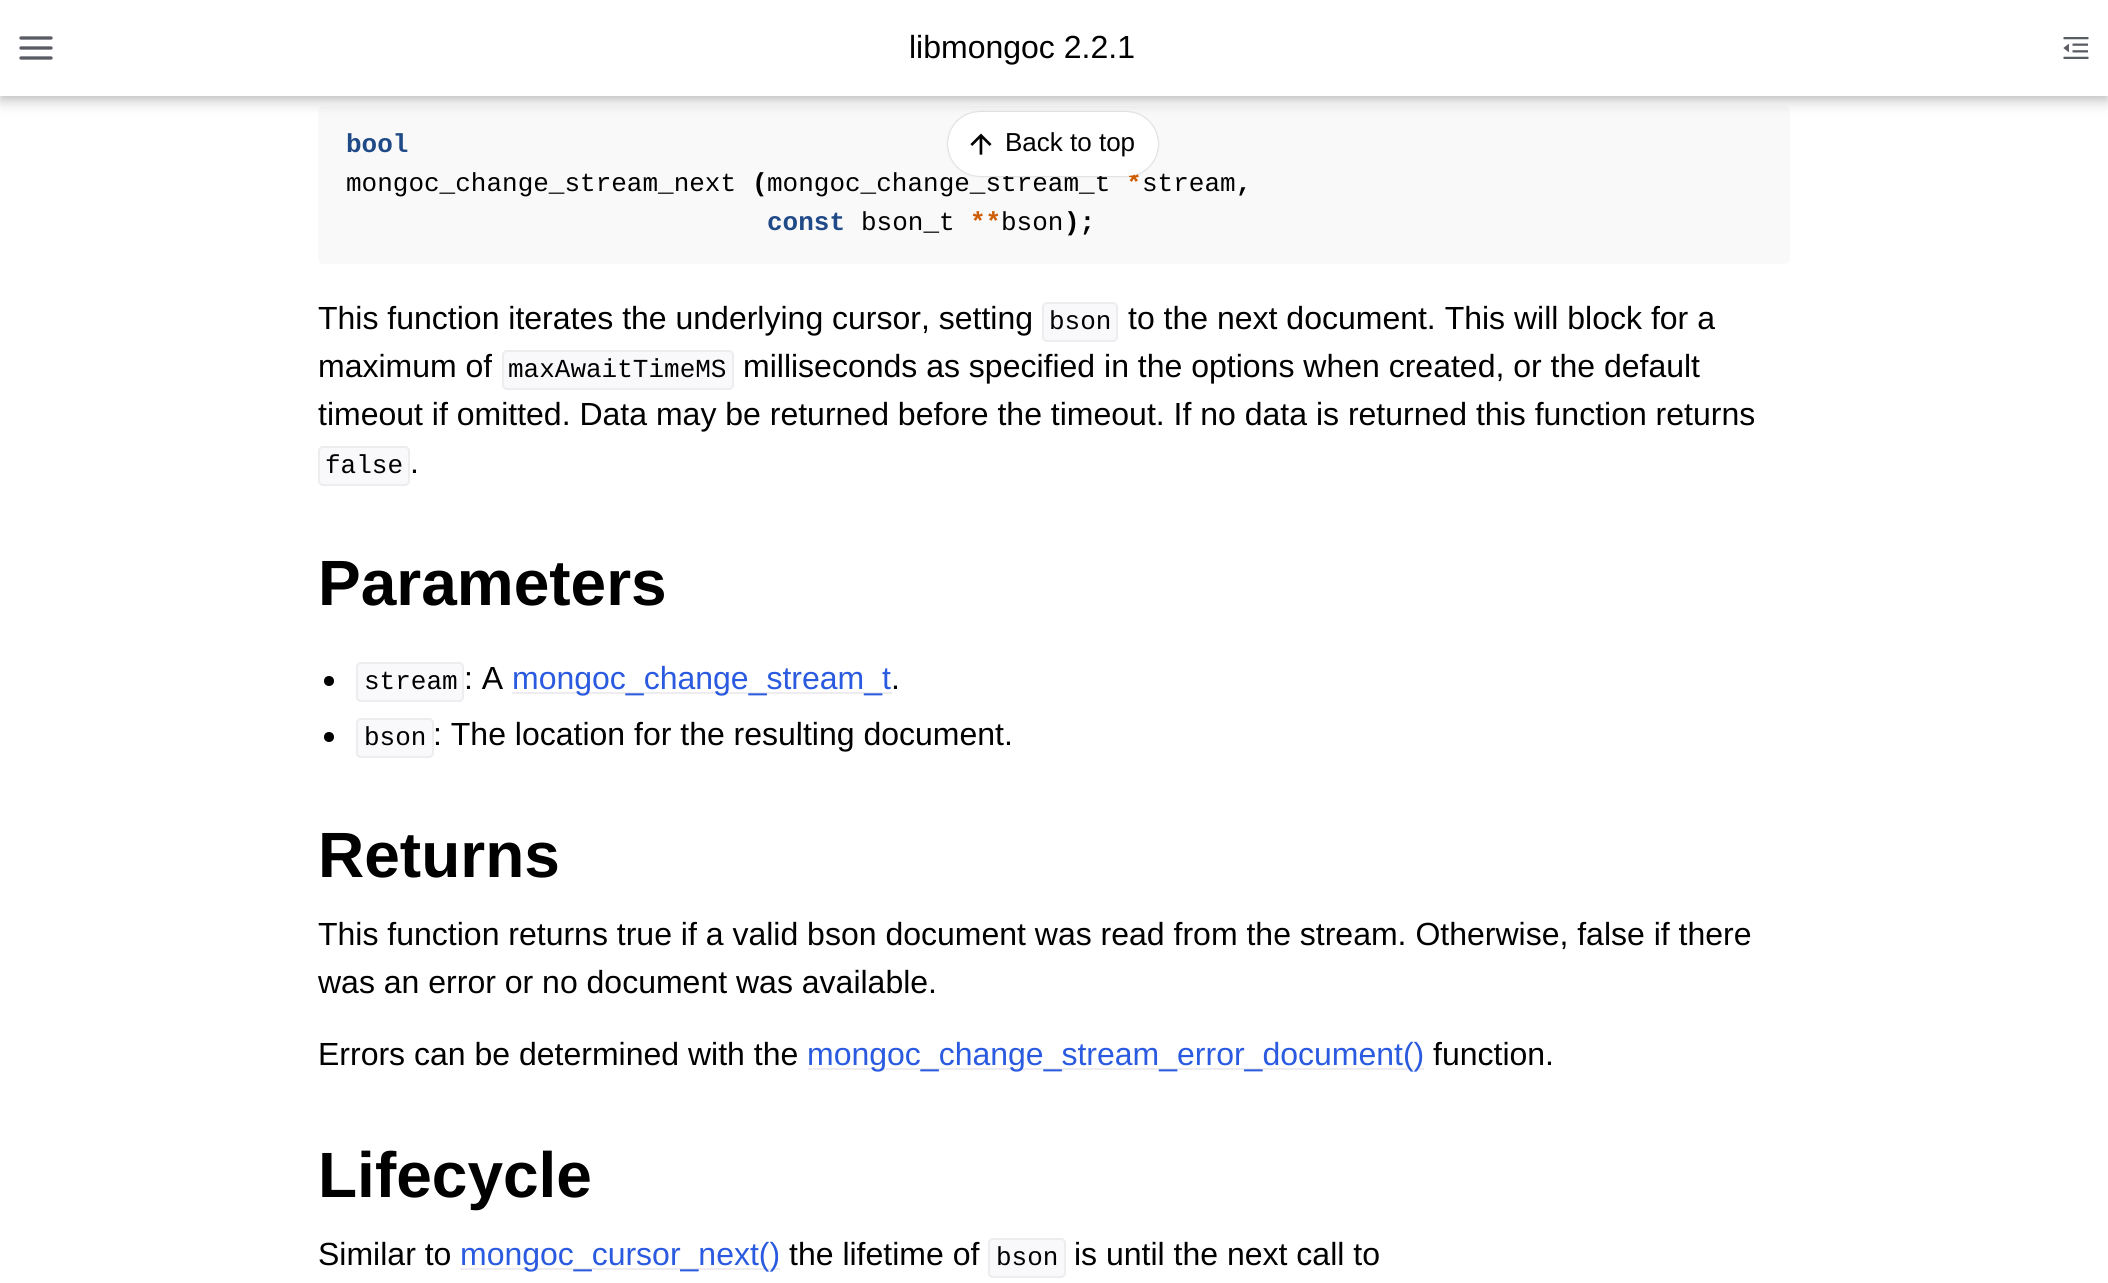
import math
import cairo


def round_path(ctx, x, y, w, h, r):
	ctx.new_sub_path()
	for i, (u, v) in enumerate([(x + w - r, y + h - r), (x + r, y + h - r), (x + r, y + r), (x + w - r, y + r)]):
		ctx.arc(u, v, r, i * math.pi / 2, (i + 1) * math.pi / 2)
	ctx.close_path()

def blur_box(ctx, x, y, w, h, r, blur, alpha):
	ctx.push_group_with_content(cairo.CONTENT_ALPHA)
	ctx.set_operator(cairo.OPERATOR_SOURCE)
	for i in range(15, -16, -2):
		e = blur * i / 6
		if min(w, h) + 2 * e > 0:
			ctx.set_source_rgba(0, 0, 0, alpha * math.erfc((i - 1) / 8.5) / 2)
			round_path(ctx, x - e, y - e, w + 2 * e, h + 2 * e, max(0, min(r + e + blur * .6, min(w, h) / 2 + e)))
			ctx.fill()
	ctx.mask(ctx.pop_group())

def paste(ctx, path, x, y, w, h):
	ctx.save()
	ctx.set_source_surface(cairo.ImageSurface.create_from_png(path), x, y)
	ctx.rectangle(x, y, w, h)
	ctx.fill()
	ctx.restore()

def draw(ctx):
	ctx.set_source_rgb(1, 1, 1)
	ctx.paint()
	ctx.set_source_rgb(0.973, 0.973, 0.973)
	round_path(ctx, 318, 106, 1472, 158, 6)
	ctx.fill()
	ctx.set_source_rgb(0, 0, 0)
	blur_box(ctx, 0, 6, 2108, 96, 0, 6.5, 0.2)
	blur_box(ctx, 0, 0, 2108, 96, 0, 3, 0.1)
	ctx.set_source_rgb(1, 1, 1)
	ctx.rectangle(0, 0, 2108, 96)
	ctx.fill()
	ctx.new_path()
	ctx.move_to(21, 48)
	ctx.line_to(51, 48)
	ctx.move_to(21, 38)
	ctx.line_to(51, 38)
	ctx.move_to(21, 58)
	ctx.line_to(51, 58)
	ctx.set_source_rgb(0.353, 0.361, 0.388)
	ctx.set_line_width(3.3)
	ctx.set_line_cap(cairo.LINE_CAP_ROUND)
	ctx.set_line_join(cairo.LINE_JOIN_ROUND)
	ctx.stroke()
	ctx.select_font_face('Liberation Sans')
	ctx.set_font_size(32)
	ctx.set_source_rgb(0, 0, 0)
	ctx.move_to(909, 58)
	ctx.show_text('libmongoc 2.2.1')
	paste(ctx, 'media/1.png', 2063, 37, 26, 22)
	ctx.set_source_rgb(0.42, 0.447, 0.502)
	blur_box(ctx, 948, 112, 210, 64, 32, 1, 0.5)
	ctx.select_font_face('Liberation Mono')
	ctx.set_font_size(26)
	ctx.set_source_rgb(0, 0, 0)
	ctx.move_to(767, 191)
	ctx.show_text('mongoc_change_stream_t')
	ctx.select_font_face('Liberation Mono', cairo.FONT_SLANT_NORMAL, cairo.FONT_WEIGHT_BOLD)
	ctx.set_source_rgb(0.808, 0.361, 0)
	ctx.move_to(1126, 191)
	ctx.show_text('*')
	ctx.select_font_face('Liberation Mono')
	ctx.set_source_rgb(0, 0, 0)
	ctx.move_to(1142, 191)
	ctx.show_text('stream')
	ctx.set_source_rgb(1, 1, 1)
	round_path(ctx, 948, 112, 210, 64, 32)
	ctx.fill()
	paste(ctx, 'media/2.png', 970, 133, 22, 22)
	ctx.select_font_face('Liberation Sans')
	ctx.set_source_rgb(0, 0, 0)
	ctx.move_to(1005, 151)
	ctx.show_text('Back to top')
	ctx.select_font_face('Liberation Mono', cairo.FONT_SLANT_NORMAL, cairo.FONT_WEIGHT_BOLD)
	ctx.set_source_rgb(0.125, 0.29, 0.529)
	ctx.move_to(346, 152)
	ctx.show_text('bool')
	ctx.select_font_face('Liberation Mono')
	ctx.set_source_rgb(0, 0, 0)
	ctx.move_to(346, 191)
	ctx.show_text('mongoc_change_stream_next')
	ctx.select_font_face('Liberation Mono', cairo.FONT_SLANT_NORMAL, cairo.FONT_WEIGHT_BOLD)
	ctx.move_to(752, 191)
	ctx.show_text('(')
	ctx.move_to(1236, 191)
	ctx.show_text(',')
	ctx.set_source_rgb(0.125, 0.29, 0.529)
	ctx.move_to(767, 230)
	ctx.show_text('const')
	ctx.select_font_face('Liberation Mono')
	ctx.set_source_rgb(0, 0, 0)
	ctx.move_to(861, 230)
	ctx.show_text('bson_t')
	ctx.select_font_face('Liberation Mono', cairo.FONT_SLANT_NORMAL, cairo.FONT_WEIGHT_BOLD)
	ctx.set_source_rgb(0.808, 0.361, 0)
	ctx.move_to(970, 230)
	ctx.show_text('**')
	ctx.select_font_face('Liberation Mono')
	ctx.set_source_rgb(0, 0, 0)
	ctx.move_to(1001, 230)
	ctx.show_text('bson')
	ctx.select_font_face('Liberation Mono', cairo.FONT_SLANT_NORMAL, cairo.FONT_WEIGHT_BOLD)
	ctx.move_to(1064, 230)
	ctx.show_text(');')
	ctx.select_font_face('Liberation Sans')
	ctx.set_font_size(32)
	ctx.move_to(318, 329)
	ctx.show_text('This function iterates the underlying cursor, setting')
	ctx.set_source_rgb(0.973, 0.976, 0.984)
	round_path(ctx, 1043, 303, 74, 38, 4)
	ctx.fill_preserve()
	ctx.set_source_rgb(0.933, 0.922, 0.933)
	ctx.set_line_width(2)
	ctx.set_line_cap(cairo.LINE_CAP_BUTT)
	ctx.set_line_join(cairo.LINE_JOIN_MITER)
	ctx.stroke()
	ctx.select_font_face('Liberation Mono')
	ctx.set_font_size(26)
	ctx.set_source_rgb(0, 0, 0)
	ctx.move_to(1049, 329)
	ctx.show_text('bson')
	ctx.select_font_face('Liberation Sans')
	ctx.set_font_size(32)
	ctx.move_to(1128, 329)
	ctx.show_text('to the next document. This will block for a')
	ctx.move_to(318, 377)
	ctx.show_text('maximum of')
	ctx.set_source_rgb(0.973, 0.976, 0.984)
	round_path(ctx, 503, 351, 230, 38, 4)
	ctx.fill_preserve()
	ctx.set_source_rgb(0.933, 0.922, 0.933)
	ctx.stroke()
	ctx.select_font_face('Liberation Mono')
	ctx.set_font_size(26)
	ctx.set_source_rgb(0, 0, 0)
	ctx.move_to(508, 377)
	ctx.show_text('maxAwaitTimeMS')
	ctx.select_font_face('Liberation Sans')
	ctx.set_font_size(32)
	ctx.move_to(743, 377)
	ctx.show_text('milliseconds as specified in the options when created, or the default')
	ctx.move_to(318, 425)
	ctx.show_text('timeout if omitted. Data may be returned before the timeout. If no data is returned this function returns')
	ctx.set_source_rgb(0.973, 0.976, 0.984)
	round_path(ctx, 319, 447, 90, 38, 4)
	ctx.fill_preserve()
	ctx.set_source_rgb(0.933, 0.922, 0.933)
	ctx.stroke()
	ctx.select_font_face('Liberation Mono')
	ctx.set_font_size(26)
	ctx.set_source_rgb(0, 0, 0)
	ctx.move_to(325, 473)
	ctx.show_text('false')
	ctx.select_font_face('Liberation Sans')
	ctx.set_font_size(32)
	ctx.move_to(410, 473)
	ctx.show_text('.')
	ctx.select_font_face('Liberation Sans', cairo.FONT_SLANT_NORMAL, cairo.FONT_WEIGHT_BOLD)
	ctx.set_font_size(64)
	ctx.move_to(318, 605)
	ctx.show_text('Parameters')
	ctx.new_path()
	ctx.arc(329, 681, 5, 0, 2 * math.pi)
	ctx.fill()
	ctx.set_source_rgb(0.973, 0.976, 0.984)
	round_path(ctx, 357, 663, 106, 38, 4)
	ctx.fill_preserve()
	ctx.set_source_rgb(0.933, 0.922, 0.933)
	ctx.stroke()
	ctx.select_font_face('Liberation Mono')
	ctx.set_font_size(26)
	ctx.set_source_rgb(0, 0, 0)
	ctx.move_to(364, 689)
	ctx.show_text('stream')
	ctx.select_font_face('Liberation Sans')
	ctx.set_font_size(32)
	ctx.move_to(464, 689)
	ctx.show_text(': A')
	ctx.set_source_rgb(0.933, 0.922, 0.933)
	ctx.rectangle(512, 692, 380, 2)
	ctx.fill()
	ctx.set_source_rgb(0.165, 0.353, 0.875)
	ctx.move_to(512, 689)
	ctx.show_text('mongoc_change_stream_t')
	ctx.set_source_rgb(0, 0, 0)
	ctx.move_to(891, 689)
	ctx.show_text('.')
	ctx.new_path()
	ctx.arc(329, 737, 5, 0, 2 * math.pi)
	ctx.fill()
	ctx.set_source_rgb(0.973, 0.976, 0.984)
	round_path(ctx, 357, 719, 76, 38, 4)
	ctx.fill_preserve()
	ctx.set_source_rgb(0.933, 0.922, 0.933)
	ctx.stroke()
	ctx.select_font_face('Liberation Mono')
	ctx.set_font_size(26)
	ctx.set_source_rgb(0, 0, 0)
	ctx.move_to(364, 745)
	ctx.show_text('bson')
	ctx.select_font_face('Liberation Sans')
	ctx.set_font_size(32)
	ctx.move_to(433, 745)
	ctx.show_text(': The location for the resulting document.')
	ctx.select_font_face('Liberation Sans', cairo.FONT_SLANT_NORMAL, cairo.FONT_WEIGHT_BOLD)
	ctx.set_font_size(64)
	ctx.move_to(318, 877)
	ctx.show_text('Returns')
	ctx.select_font_face('Liberation Sans')
	ctx.set_font_size(32)
	for x, y, s in [
		(318, 945, 'This function returns true if a valid bson document was read from the stream. Otherwise, false if there'),
		(318, 993, 'was an error or no document was available.'),
		(318, 1065, 'Errors can be determined with the'),
	]:
		ctx.move_to(x, y)
		ctx.show_text(s)
	ctx.set_source_rgb(0.933, 0.922, 0.933)
	ctx.rectangle(808, 1068, 616, 2)
	ctx.fill()
	ctx.set_source_rgb(0.165, 0.353, 0.875)
	ctx.move_to(807, 1065)
	ctx.show_text('mongoc_change_stream_error_document()')
	ctx.set_source_rgb(0, 0, 0)
	ctx.move_to(1433, 1065)
	ctx.show_text('function.')
	ctx.select_font_face('Liberation Sans', cairo.FONT_SLANT_NORMAL, cairo.FONT_WEIGHT_BOLD)
	ctx.set_font_size(64)
	ctx.move_to(318, 1197)
	ctx.show_text('Lifecycle')
	ctx.select_font_face('Liberation Sans')
	ctx.set_font_size(32)
	ctx.move_to(318, 1265)
	ctx.show_text('Similar to')
	ctx.set_source_rgb(0.933, 0.922, 0.933)
	ctx.rectangle(460, 1268, 320, 2)
	ctx.fill()
	ctx.set_source_rgb(0.165, 0.353, 0.875)
	ctx.move_to(460, 1265)
	ctx.show_text('mongoc_cursor_next()')
	ctx.set_source_rgb(0, 0, 0)
	ctx.move_to(789, 1265)
	ctx.show_text('the lifetime of')
	ctx.set_source_rgb(0.973, 0.976, 0.984)
	round_path(ctx, 989, 1239, 76, 38, 4)
	ctx.fill_preserve()
	ctx.set_source_rgb(0.933, 0.922, 0.933)
	ctx.stroke()
	ctx.select_font_face('Liberation Mono')
	ctx.set_font_size(26)
	ctx.set_source_rgb(0, 0, 0)
	ctx.move_to(996, 1265)
	ctx.show_text('bson')
	ctx.select_font_face('Liberation Sans')
	ctx.set_font_size(32)
	ctx.move_to(1074, 1265)
	ctx.show_text('is until the next call to')


surface = cairo.ImageSurface(cairo.FORMAT_RGB24, 2108, 1283)
ctx = cairo.Context(surface)
options = cairo.FontOptions()
options.set_hint_metrics(cairo.HINT_METRICS_OFF)
options.set_hint_style(cairo.HINT_STYLE_NONE)
ctx.set_font_options(options)
ctx.set_miter_limit(4)
draw(ctx)
surface.write_to_png('image.png')
